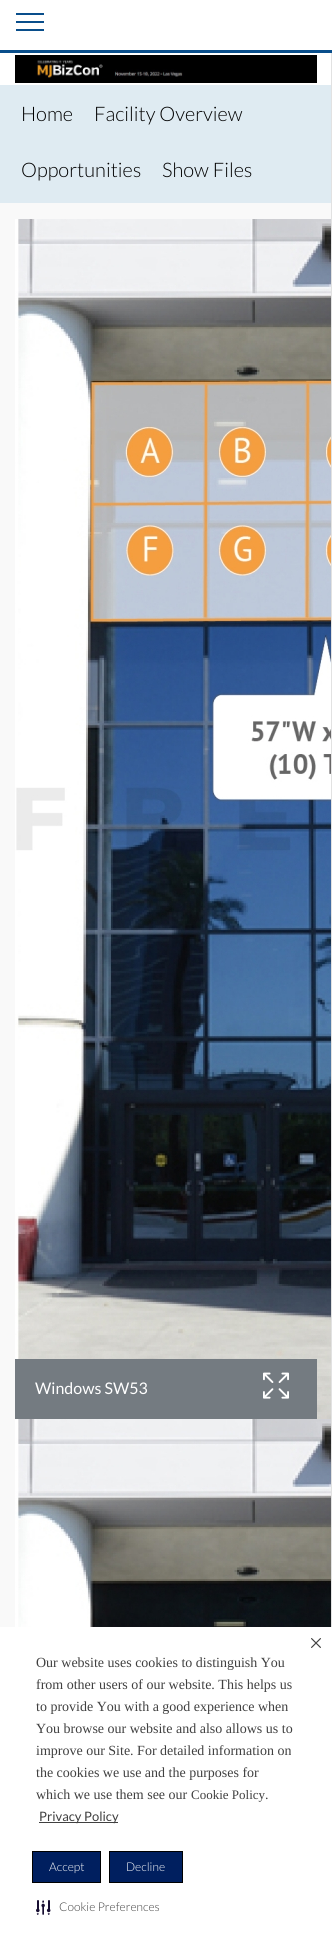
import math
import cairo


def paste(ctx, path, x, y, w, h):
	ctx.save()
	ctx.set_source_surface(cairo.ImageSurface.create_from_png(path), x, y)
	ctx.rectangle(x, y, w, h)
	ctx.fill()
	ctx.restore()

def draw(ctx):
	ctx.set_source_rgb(0.976, 0.976, 0.976)
	ctx.paint()
	ctx.set_source_rgb(1, 1, 1)
	ctx.rectangle(0, 0, 332, 50)
	ctx.fill()
	ctx.set_source_rgb(0.039, 0.306, 0.545)
	ctx.rectangle(0, 50, 332, 3)
	ctx.rectangle(16, 13, 28, 2)
	ctx.rectangle(16, 21, 28, 2)
	ctx.rectangle(16, 29, 28, 2)
	ctx.fill()
	ctx.set_source_rgb(1, 1, 1)
	ctx.rectangle(0, 53, 331, 32)
	ctx.fill()
	paste(ctx, 'media/1.png', 15, 55, 302, 28)
	ctx.set_source_rgb(0.886, 0.886, 0.886)
	ctx.rectangle(331, 53, 1, 1574)
	ctx.fill()
	ctx.set_source_rgb(0.875, 0.918, 0.949)
	ctx.rectangle(0, 85, 331, 118)
	ctx.fill()
	ctx.select_font_face('Lato Light')
	ctx.set_font_size(20)
	ctx.set_source_rgb(0, 0, 0)
	for x, y, s in [
		(21, 121, 'Home'),
		(94, 121, 'Facility Overview'),
		(21, 177, 'Opportunities'),
		(162, 177, 'Show Files'),
	]:
		ctx.move_to(x, y)
		ctx.show_text(s)
	paste(ctx, 'media/2.png', 15, 219, 316, 1200)
	ctx.set_source_rgb(0.455, 0.482, 0.506)
	ctx.rectangle(15, 1359, 302, 60)
	ctx.fill()
	ctx.select_font_face('Lato')
	ctx.set_font_size(16)
	ctx.set_source_rgb(1, 1, 1)
	ctx.move_to(35, 1394)
	ctx.show_text('Windows SW53')
	paste(ctx, 'media/3.png', 263, 1372, 26, 27)
	paste(ctx, 'media/4.png', 15, 1419, 316, 208)
	ctx.rectangle(0, 1627, 332, 328)
	ctx.fill()
	ctx.select_font_face('Liberation Serif')
	ctx.set_font_size(14)
	ctx.set_source_rgb(0.251, 0.251, 0.251)
	for x, y, s in [
		(36, 1667, 'Our website uses cookies to distinguish You'),
		(36, 1689, 'from other users of our website. This helps us'),
		(36, 1711, 'to provide You with a good experience when'),
		(36, 1733, 'You browse our website and also allows us to'),
		(36, 1755, 'improve our Site. For detailed information on'),
		(36, 1777, 'the cookies we use and the purposes for'),
		(36, 1799, 'which we use them see our'),
	]:
		ctx.move_to(x, y)
		ctx.show_text(s)
	ctx.set_font_size(13)
	ctx.move_to(191, 1799)
	ctx.show_text('Cookie Policy')
	ctx.set_font_size(14)
	ctx.move_to(265, 1799)
	ctx.show_text('.')
	ctx.rectangle(39, 1822, 79, 1)
	ctx.fill()
	ctx.select_font_face('Lato')
	ctx.set_font_size(13)
	ctx.move_to(39, 1821)
	ctx.show_text('Privacy Policy')
	paste(ctx, 'media/5.png', 311, 1638, 10, 10)
	ctx.set_source_rgb(0, 0.122, 0.373)
	ctx.rectangle(32.5, 1851.5, 68, 31)
	ctx.fill_preserve()
	ctx.set_source_rgb(0, 0, 0)
	ctx.set_line_width(1)
	ctx.stroke()
	ctx.select_font_face('Lato Light')
	ctx.set_font_size(12)
	ctx.set_source_rgb(1, 1, 1)
	ctx.move_to(49, 1871)
	ctx.show_text('Accept')
	ctx.set_source_rgb(0, 0.122, 0.373)
	ctx.rectangle(109.5, 1851.5, 73, 31)
	ctx.fill_preserve()
	ctx.set_source_rgb(0, 0, 0)
	ctx.stroke()
	ctx.set_source_rgb(1, 1, 1)
	ctx.move_to(126, 1871)
	ctx.show_text('Decline')
	paste(ctx, 'media/6.png', 36, 1900, 15, 15)
	ctx.set_source_rgb(0.251, 0.251, 0.251)
	ctx.move_to(59, 1911)
	ctx.show_text('Cookie Preferences')


surface = cairo.ImageSurface(cairo.FORMAT_RGB24, 332, 1955)
ctx = cairo.Context(surface)
options = cairo.FontOptions()
options.set_hint_metrics(cairo.HINT_METRICS_OFF)
options.set_hint_style(cairo.HINT_STYLE_NONE)
ctx.set_font_options(options)
ctx.set_miter_limit(4)
draw(ctx)
surface.write_to_png('image.png')
